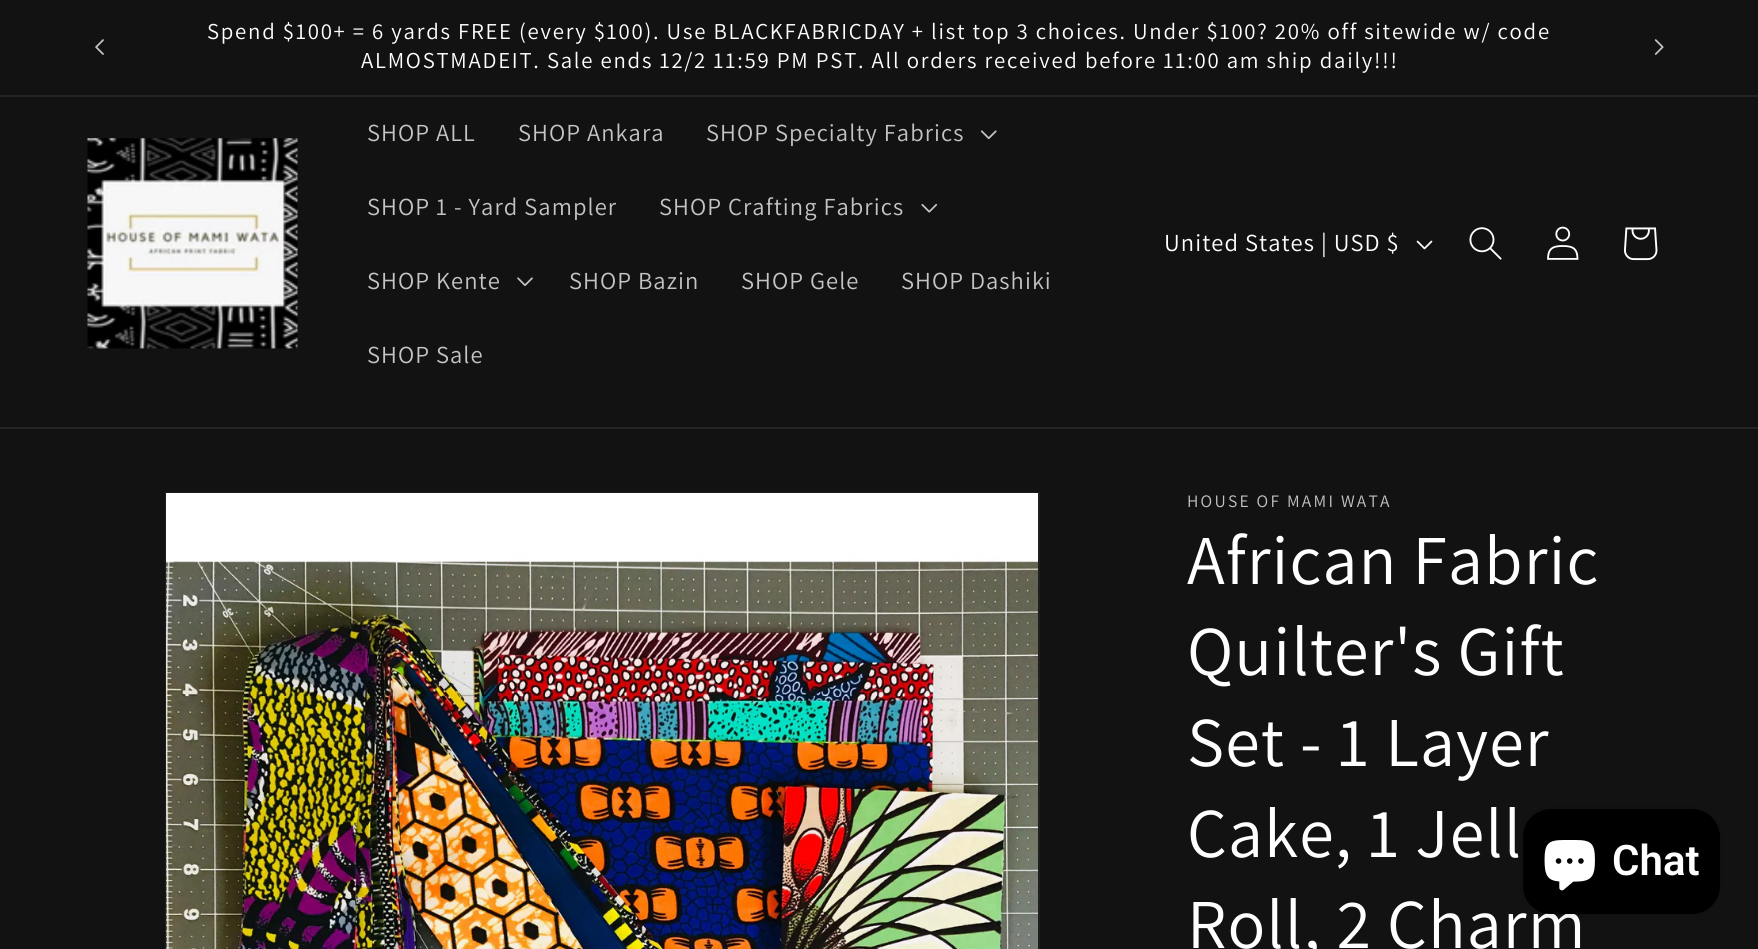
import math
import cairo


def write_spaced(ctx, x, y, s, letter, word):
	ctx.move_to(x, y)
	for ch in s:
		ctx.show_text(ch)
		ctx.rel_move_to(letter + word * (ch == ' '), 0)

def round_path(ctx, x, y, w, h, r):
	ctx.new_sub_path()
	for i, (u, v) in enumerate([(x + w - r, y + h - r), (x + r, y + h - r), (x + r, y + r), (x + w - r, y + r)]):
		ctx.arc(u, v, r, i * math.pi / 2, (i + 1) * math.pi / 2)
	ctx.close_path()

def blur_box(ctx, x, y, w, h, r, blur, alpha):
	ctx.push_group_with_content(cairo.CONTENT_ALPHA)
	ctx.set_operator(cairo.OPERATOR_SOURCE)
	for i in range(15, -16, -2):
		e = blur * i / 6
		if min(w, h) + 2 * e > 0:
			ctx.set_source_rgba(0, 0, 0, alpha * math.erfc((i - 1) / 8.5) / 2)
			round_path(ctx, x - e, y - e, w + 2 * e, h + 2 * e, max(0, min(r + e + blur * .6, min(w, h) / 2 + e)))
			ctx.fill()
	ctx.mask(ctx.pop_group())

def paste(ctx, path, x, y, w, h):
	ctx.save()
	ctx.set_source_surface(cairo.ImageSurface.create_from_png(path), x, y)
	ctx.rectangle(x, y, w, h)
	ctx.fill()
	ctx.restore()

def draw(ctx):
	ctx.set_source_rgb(0.071, 0.071, 0.071)
	ctx.paint()
	ctx.set_source_rgb(0.145, 0.145, 0.145)
	ctx.rectangle(0, 95, 1758, 2)
	ctx.fill()
	paste(ctx, 'media/1.png', 95, 39, 9, 16)
	ctx.select_font_face('Assistant')
	ctx.set_font_size(22.75)
	ctx.set_source_rgb(1, 1, 1)
	write_spaced(ctx, 207, 39, 'Spend $100+ = 6 yards FREE (every $100). Use BLACKFABRICDAY + list top 3 choices. Under $100? 20% off sitewide w/ code', 1.75, 0)
	write_spaced(ctx, 361, 68, 'ALMOSTMADEIT. Sale ends 12/2 11:59 PM PST. All orders received before 11:00 am ship daily!!!', 1.75, 0)
	paste(ctx, 'media/2.png', 1654, 39, 10, 16)
	ctx.set_source_rgb(0.145, 0.145, 0.145)
	ctx.rectangle(0, 427, 1758, 2)
	ctx.fill()
	paste(ctx, 'media/3.png', 87, 138, 211, 211)
	ctx.set_font_size(24.5)
	ctx.set_source_rgb(0.769, 0.769, 0.769)
	for x, y, s in [
		(367, 141, 'SHOP ALL'),
		(518, 141, 'SHOP Ankara'),
		(706, 141, 'SHOP Specialty Fabrics'),
	]:
		write_spaced(ctx, x, y, s, 1.05, 0)
	paste(ctx, 'media/4.png', 980, 130, 17, 10)
	write_spaced(ctx, 367, 215, 'SHOP 1 - Yard Sampler', 1.05, 0)
	write_spaced(ctx, 659, 215, 'SHOP Crafting Fabrics', 1.05, 0)
	paste(ctx, 'media/5.png', 921, 203, 17, 10)
	write_spaced(ctx, 367, 289, 'SHOP Kente', 1.05, 0)
	paste(ctx, 'media/6.png', 517, 277, 16, 9)
	for x, y, s in [
		(569, 289, 'SHOP Bazin'),
		(741, 289, 'SHOP Gele'),
		(901, 289, 'SHOP Dashiki'),
		(367, 363, 'SHOP Sale'),
	]:
		write_spaced(ctx, x, y, s, 1.05, 0)
	ctx.set_source_rgb(1, 1, 1)
	write_spaced(ctx, 1164, 251, 'United States | USD $', 1.05, 0)
	paste(ctx, 'media/7.png', 1416, 240, 17, 10)
	paste(ctx, 'media/8.png', 1469, 227, 33, 33)
	paste(ctx, 'media/9.png', 1547, 226, 32, 34)
	paste(ctx, 'media/10.png', 1624, 227, 34, 34)
	ctx.rectangle(166, 493, 873, 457)
	ctx.set_source_rgb(0.118, 0.118, 0.118)
	ctx.stroke()
	paste(ctx, 'media/11.png', 166, 493, 872, 456)
	ctx.set_font_size(17.5)
	ctx.set_source_rgb(0.769, 0.769, 0.769)
	write_spaced(ctx, 1187, 507, 'HOUSE OF MAMI WATA', 2.25, 0)
	ctx.set_font_size(70)
	ctx.set_source_rgb(1, 1, 1)
	for x, y, s in [
		(1187, 584, 'African Fabric'),
		(1187, 675, 'Quilter\'s Gift'),
		(1187, 766, 'Set - 1 Layer'),
		(1187, 857, 'Cake, 1 Jell'),
		(1187, 948, 'Roll, 2 Charm'),
	]:
		write_spaced(ctx, x, y, s, 1.05, 0)
	ctx.set_source_rgb(0, 0, 0)
	blur_box(ctx, 1523, 809, 197, 105, 28, 4.5, 0.15)
	ctx.set_source_rgb(0, 0, 0)
	round_path(ctx, 1523, 809, 197, 105, 28)
	ctx.fill()
	paste(ctx, 'media/12.png', 1544, 840, 51, 51)
	ctx.select_font_face('Roboto SemiBold')
	ctx.set_font_size(42)
	ctx.set_source_rgb(1, 1, 1)
	ctx.move_to(1612, 875)
	ctx.show_text('Chat')


surface = cairo.ImageSurface(cairo.FORMAT_RGB24, 1758, 949)
ctx = cairo.Context(surface)
options = cairo.FontOptions()
options.set_hint_metrics(cairo.HINT_METRICS_OFF)
options.set_hint_style(cairo.HINT_STYLE_NONE)
ctx.set_font_options(options)
ctx.set_miter_limit(4)
draw(ctx)
surface.write_to_png('image.png')
